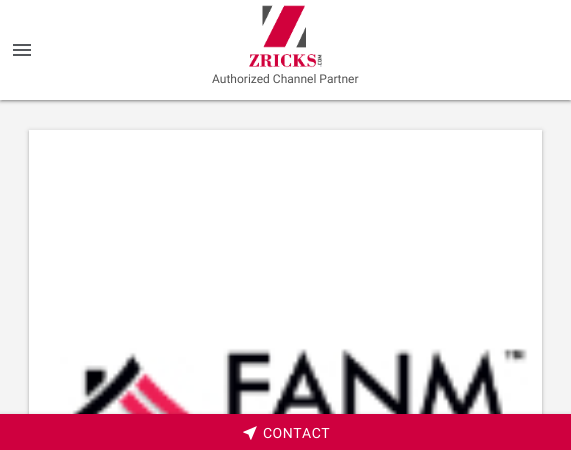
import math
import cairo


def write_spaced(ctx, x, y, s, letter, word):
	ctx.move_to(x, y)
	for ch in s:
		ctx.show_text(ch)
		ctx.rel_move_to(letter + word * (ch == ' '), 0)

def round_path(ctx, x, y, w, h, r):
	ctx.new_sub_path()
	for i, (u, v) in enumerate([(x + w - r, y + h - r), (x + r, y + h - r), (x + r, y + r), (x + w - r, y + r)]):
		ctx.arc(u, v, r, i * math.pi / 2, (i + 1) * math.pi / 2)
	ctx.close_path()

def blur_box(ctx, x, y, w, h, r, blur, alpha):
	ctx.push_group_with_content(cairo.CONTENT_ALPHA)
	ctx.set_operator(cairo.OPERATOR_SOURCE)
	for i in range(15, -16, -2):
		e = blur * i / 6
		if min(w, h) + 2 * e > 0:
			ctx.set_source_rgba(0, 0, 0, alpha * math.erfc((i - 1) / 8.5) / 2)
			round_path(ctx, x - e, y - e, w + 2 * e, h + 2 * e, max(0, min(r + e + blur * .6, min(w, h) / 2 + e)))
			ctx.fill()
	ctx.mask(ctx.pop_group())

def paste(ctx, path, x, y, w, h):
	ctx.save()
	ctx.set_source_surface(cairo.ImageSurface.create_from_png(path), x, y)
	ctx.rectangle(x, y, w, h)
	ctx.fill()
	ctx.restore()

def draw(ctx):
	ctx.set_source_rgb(0.957, 0.957, 0.957)
	ctx.paint()
	ctx.set_source_rgb(0, 0, 0)
	blur_box(ctx, 0, 1, 571, 100, 0, 2.5, 0.2)
	blur_box(ctx, 2, 5, 567, 96, 0, 0.5, 0.12)
	blur_box(ctx, 0, 2, 571, 100, 0, 1, 0.14)
	ctx.set_source_rgb(1, 1, 1)
	ctx.rectangle(0, 0, 571, 100)
	ctx.fill()
	paste(ctx, 'media/1.png', 13, 44, 18, 12)
	paste(ctx, 'media/2.png', 249, 5, 73, 63)
	ctx.select_font_face('Roboto')
	ctx.set_font_size(12)
	ctx.set_source_rgb(0.329, 0.329, 0.329)
	ctx.move_to(212, 83)
	ctx.show_text('Authorized Channel Partner')
	ctx.set_source_rgb(0, 0, 0)
	blur_box(ctx, 29, 131, 513, 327, 0, 2.5, 0.2)
	blur_box(ctx, 29, 132, 513, 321, 0, 1, 0.14)
	ctx.set_source_rgb(1, 1, 1)
	ctx.rectangle(29, 130, 513, 284)
	ctx.fill()
	paste(ctx, 'media/3.png', 45, 348, 483, 66)
	ctx.set_source_rgb(0, 0, 0)
	blur_box(ctx, 0, 415, 571, 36, 0, 2.5, 0.2)
	ctx.set_source_rgb(0.812, 0, 0.247)
	ctx.rectangle(0, 414, 571, 36)
	ctx.fill()
	paste(ctx, 'media/4.png', 243, 426, 14, 14)
	ctx.set_font_size(14)
	ctx.set_source_rgb(1, 1, 1)
	write_spaced(ctx, 263, 438, 'CONTACT', 0.5, 0)


surface = cairo.ImageSurface(cairo.FORMAT_RGB24, 571, 450)
ctx = cairo.Context(surface)
options = cairo.FontOptions()
options.set_hint_metrics(cairo.HINT_METRICS_OFF)
options.set_hint_style(cairo.HINT_STYLE_NONE)
ctx.set_font_options(options)
ctx.set_miter_limit(4)
draw(ctx)
surface.write_to_png('image.png')
